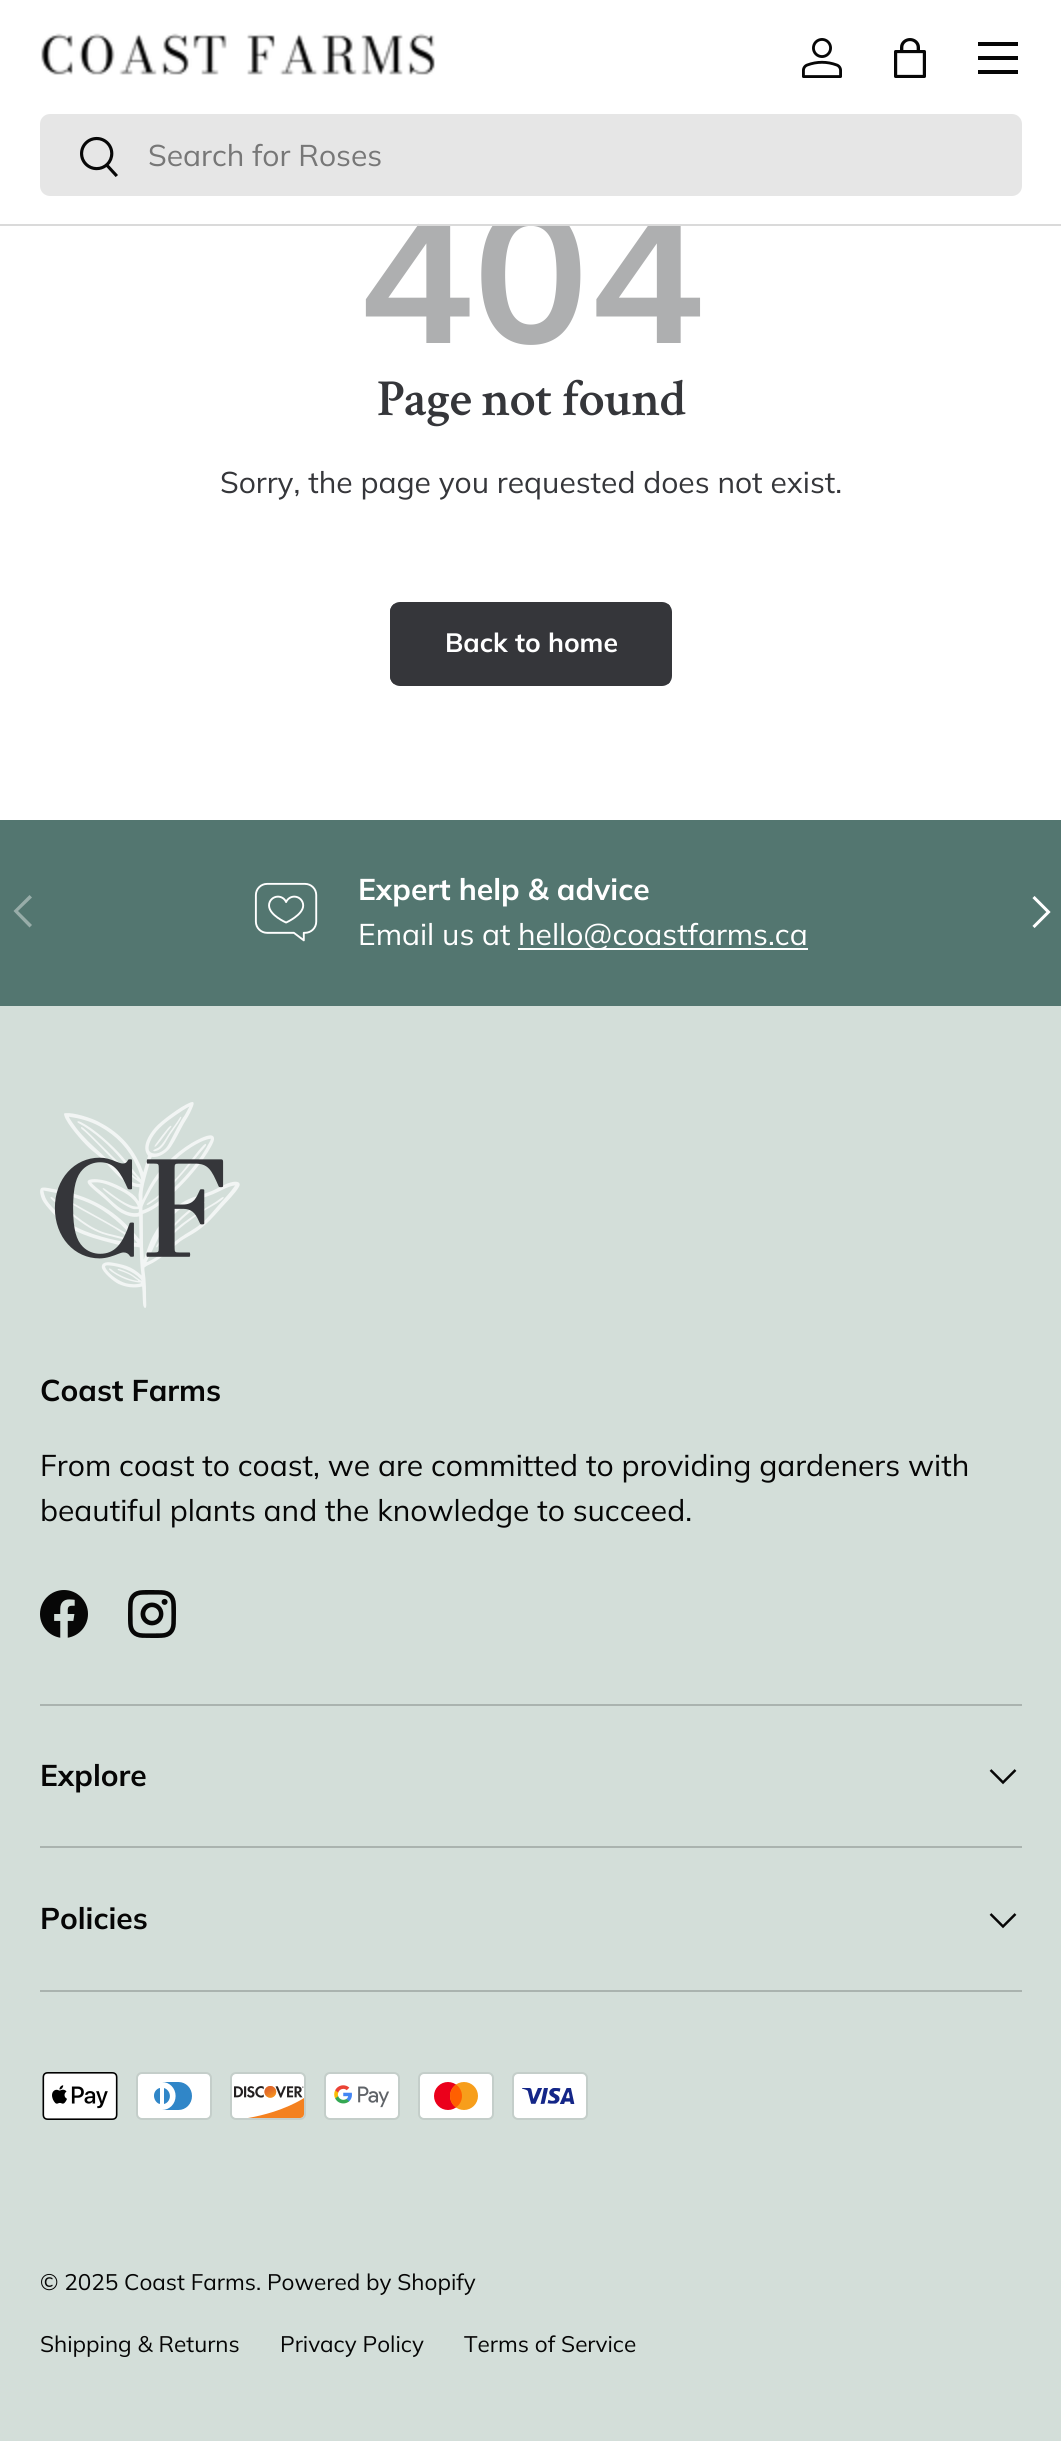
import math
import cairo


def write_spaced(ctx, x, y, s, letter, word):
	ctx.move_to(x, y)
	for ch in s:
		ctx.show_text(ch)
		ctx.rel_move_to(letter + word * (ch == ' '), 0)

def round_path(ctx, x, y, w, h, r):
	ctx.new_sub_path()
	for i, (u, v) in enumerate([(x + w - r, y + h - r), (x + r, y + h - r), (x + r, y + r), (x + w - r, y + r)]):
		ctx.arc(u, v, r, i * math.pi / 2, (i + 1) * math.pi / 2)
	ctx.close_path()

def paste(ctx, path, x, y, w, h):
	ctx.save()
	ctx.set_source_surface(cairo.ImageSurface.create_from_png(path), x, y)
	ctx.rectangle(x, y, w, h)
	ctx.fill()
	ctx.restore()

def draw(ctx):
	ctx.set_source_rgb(1, 1, 1)
	ctx.paint()
	ctx.select_font_face('Muli', cairo.FONT_SLANT_NORMAL, cairo.FONT_WEIGHT_BOLD)
	ctx.set_font_size(192)
	ctx.set_source_rgb(0.682, 0.686, 0.69)
	ctx.move_to(358, 343)
	ctx.show_text('404')
	ctx.set_source_rgb(1, 1, 1)
	ctx.rectangle(419, 205, 262, 19)
	ctx.fill()
	ctx.set_source_rgb(0.855, 0.855, 0.855)
	ctx.rectangle(0, 224, 1061, 2)
	ctx.fill()
	paste(ctx, 'media/1.png', 41, 33, 394, 42)
	paste(ctx, 'media/2.png', 802, 38, 40, 40)
	paste(ctx, 'media/3.png', 894, 38, 32, 40)
	ctx.set_source_rgb(0.027, 0.027, 0.027)
	ctx.rectangle(978, 42, 40, 4)
	ctx.rectangle(978, 70, 40, 4)
	ctx.rectangle(978, 56, 40, 4)
	ctx.fill()
	ctx.set_source_rgb(0.902, 0.902, 0.902)
	round_path(ctx, 40, 114, 982, 82, 10)
	ctx.fill()
	paste(ctx, 'media/4.png', 80, 136, 38, 41)
	ctx.select_font_face('Muli')
	ctx.set_font_size(30)
	ctx.set_source_rgb(0.467, 0.467, 0.467)
	ctx.move_to(148, 166)
	ctx.show_text('Search for Roses')
	ctx.select_font_face('Crimson Text SemiBold')
	ctx.set_font_size(52)
	ctx.set_source_rgb(0.208, 0.212, 0.227)
	write_spaced(ctx, 377, 415, 'Page not found', -0.75, 0)
	ctx.select_font_face('Muli')
	ctx.set_font_size(30)
	ctx.move_to(220, 493)
	ctx.show_text('Sorry, the page you requested does not exist.')
	ctx.save()
	round_path(ctx, 390, 602, 282, 84, 10)
	ctx.clip()
	gradient = cairo.LinearGradient(-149, 544, 655, 744)
	gradient.add_color_stop_rgba(0.6, 0.353, 0.361, 0.376, 1)
	gradient.add_color_stop_rgba(0.6, 0.208, 0.212, 0.227, 1)
	gradient.add_color_stop_rgba(1, 0.208, 0.212, 0.227, 1)
	ctx.set_source(gradient)
	ctx.rectangle(390, 604, 280, 80)
	ctx.fill()
	ctx.restore()
	round_path(ctx, 391, 603, 280, 82, 9)
	ctx.stroke()
	ctx.select_font_face('Muli', cairo.FONT_SLANT_NORMAL, cairo.FONT_WEIGHT_BOLD)
	ctx.set_font_size(26.5)
	ctx.set_source_rgb(1, 1, 1)
	ctx.move_to(445, 652)
	ctx.show_text('Back to home')
	ctx.set_source_rgb(0.325, 0.463, 0.439)
	ctx.rectangle(0, 820, 1061, 186)
	ctx.fill()
	paste(ctx, 'media/5.png', 254, 882, 64, 60)
	ctx.set_font_size(30)
	ctx.set_source_rgb(1, 1, 1)
	ctx.move_to(358, 900)
	ctx.show_text('Expert help & advice')
	ctx.select_font_face('Muli')
	ctx.move_to(358, 945)
	ctx.show_text('Email us at')
	ctx.rectangle(518, 948, 290, 2)
	ctx.fill()
	ctx.move_to(518, 945)
	ctx.show_text('hello@coastfarms.ca')
	ctx.set_source_rgb(0.596, 0.678, 0.663)
	ctx.new_path()
	ctx.move_to(13.5, 911)
	ctx.line_to(29.5, 895)
	ctx.line_to(32, 897.5)
	ctx.line_to(18, 911)
	ctx.line_to(32, 925)
	ctx.line_to(29.5, 927.5)
	ctx.close_path()
	ctx.fill()
	ctx.new_path()
	ctx.move_to(1033.5, 897)
	ctx.line_to(1048.5, 912)
	ctx.line_to(1033.5, 927)
	ctx.set_source_rgb(1, 1, 1)
	ctx.set_line_width(3)
	ctx.stroke()
	ctx.set_source_rgb(0.827, 0.871, 0.851)
	ctx.rectangle(0, 1006, 1061, 1435)
	ctx.fill()
	paste(ctx, 'media/6.png', 40, 1102, 200, 206)
	ctx.select_font_face('Muli', cairo.FONT_SLANT_NORMAL, cairo.FONT_WEIGHT_BOLD)
	ctx.set_source_rgb(0.027, 0.027, 0.027)
	ctx.move_to(40, 1401)
	ctx.show_text('Coast Farms')
	ctx.select_font_face('Muli')
	ctx.move_to(40, 1476)
	ctx.show_text('From coast to coast, we are committed to providing gardeners with')
	ctx.move_to(40, 1521)
	ctx.show_text('beautiful plants and the knowledge to succeed.')
	paste(ctx, 'media/7.png', 40, 1590, 48, 48)
	paste(ctx, 'media/8.png', 128, 1590, 48, 48)
	ctx.set_source_rgb(0.667, 0.702, 0.686)
	ctx.rectangle(40, 1704, 982, 2)
	ctx.fill()
	ctx.rectangle(40, 1846, 982, 2)
	ctx.fill()
	ctx.select_font_face('Muli', cairo.FONT_SLANT_NORMAL, cairo.FONT_WEIGHT_BOLD)
	ctx.set_source_rgb(0.027, 0.027, 0.027)
	ctx.move_to(40, 1786)
	ctx.show_text('Explore')
	ctx.new_path()
	ctx.move_to(1015.5, 1770)
	ctx.line_to(1003, 1782.5)
	ctx.line_to(990.5, 1770)
	ctx.set_line_width(2.5)
	ctx.stroke()
	ctx.set_source_rgb(0.667, 0.702, 0.686)
	ctx.rectangle(40, 1990, 982, 2)
	ctx.fill()
	ctx.set_source_rgb(0.027, 0.027, 0.027)
	ctx.move_to(40, 1929)
	ctx.show_text('Policies')
	ctx.new_path()
	ctx.move_to(1015.5, 1914)
	ctx.line_to(1003, 1926.5)
	ctx.line_to(990.5, 1914)
	ctx.stroke()
	paste(ctx, 'media/9.png', 42, 2072, 76, 48)
	paste(ctx, 'media/10.png', 136, 2072, 76, 48)
	paste(ctx, 'media/11.png', 230, 2072, 76, 48)
	paste(ctx, 'media/12.png', 324, 2072, 76, 48)
	paste(ctx, 'media/13.png', 418, 2072, 76, 48)
	paste(ctx, 'media/14.png', 512, 2072, 76, 48)
	ctx.select_font_face('Muli')
	ctx.set_font_size(22.5)
	for x, y, s in [
		(40, 2290, '© 2025 Coast Farms. Powered by Shopify'),
		(40, 2352, 'Shipping & Returns'),
		(280, 2352, 'Privacy Policy'),
		(464, 2352, 'Terms of Service'),
	]:
		ctx.move_to(x, y)
		ctx.show_text(s)


surface = cairo.ImageSurface(cairo.FORMAT_RGB24, 1061, 2441)
ctx = cairo.Context(surface)
options = cairo.FontOptions()
options.set_hint_metrics(cairo.HINT_METRICS_OFF)
options.set_hint_style(cairo.HINT_STYLE_NONE)
ctx.set_font_options(options)
ctx.set_miter_limit(4)
draw(ctx)
surface.write_to_png('image.png')
